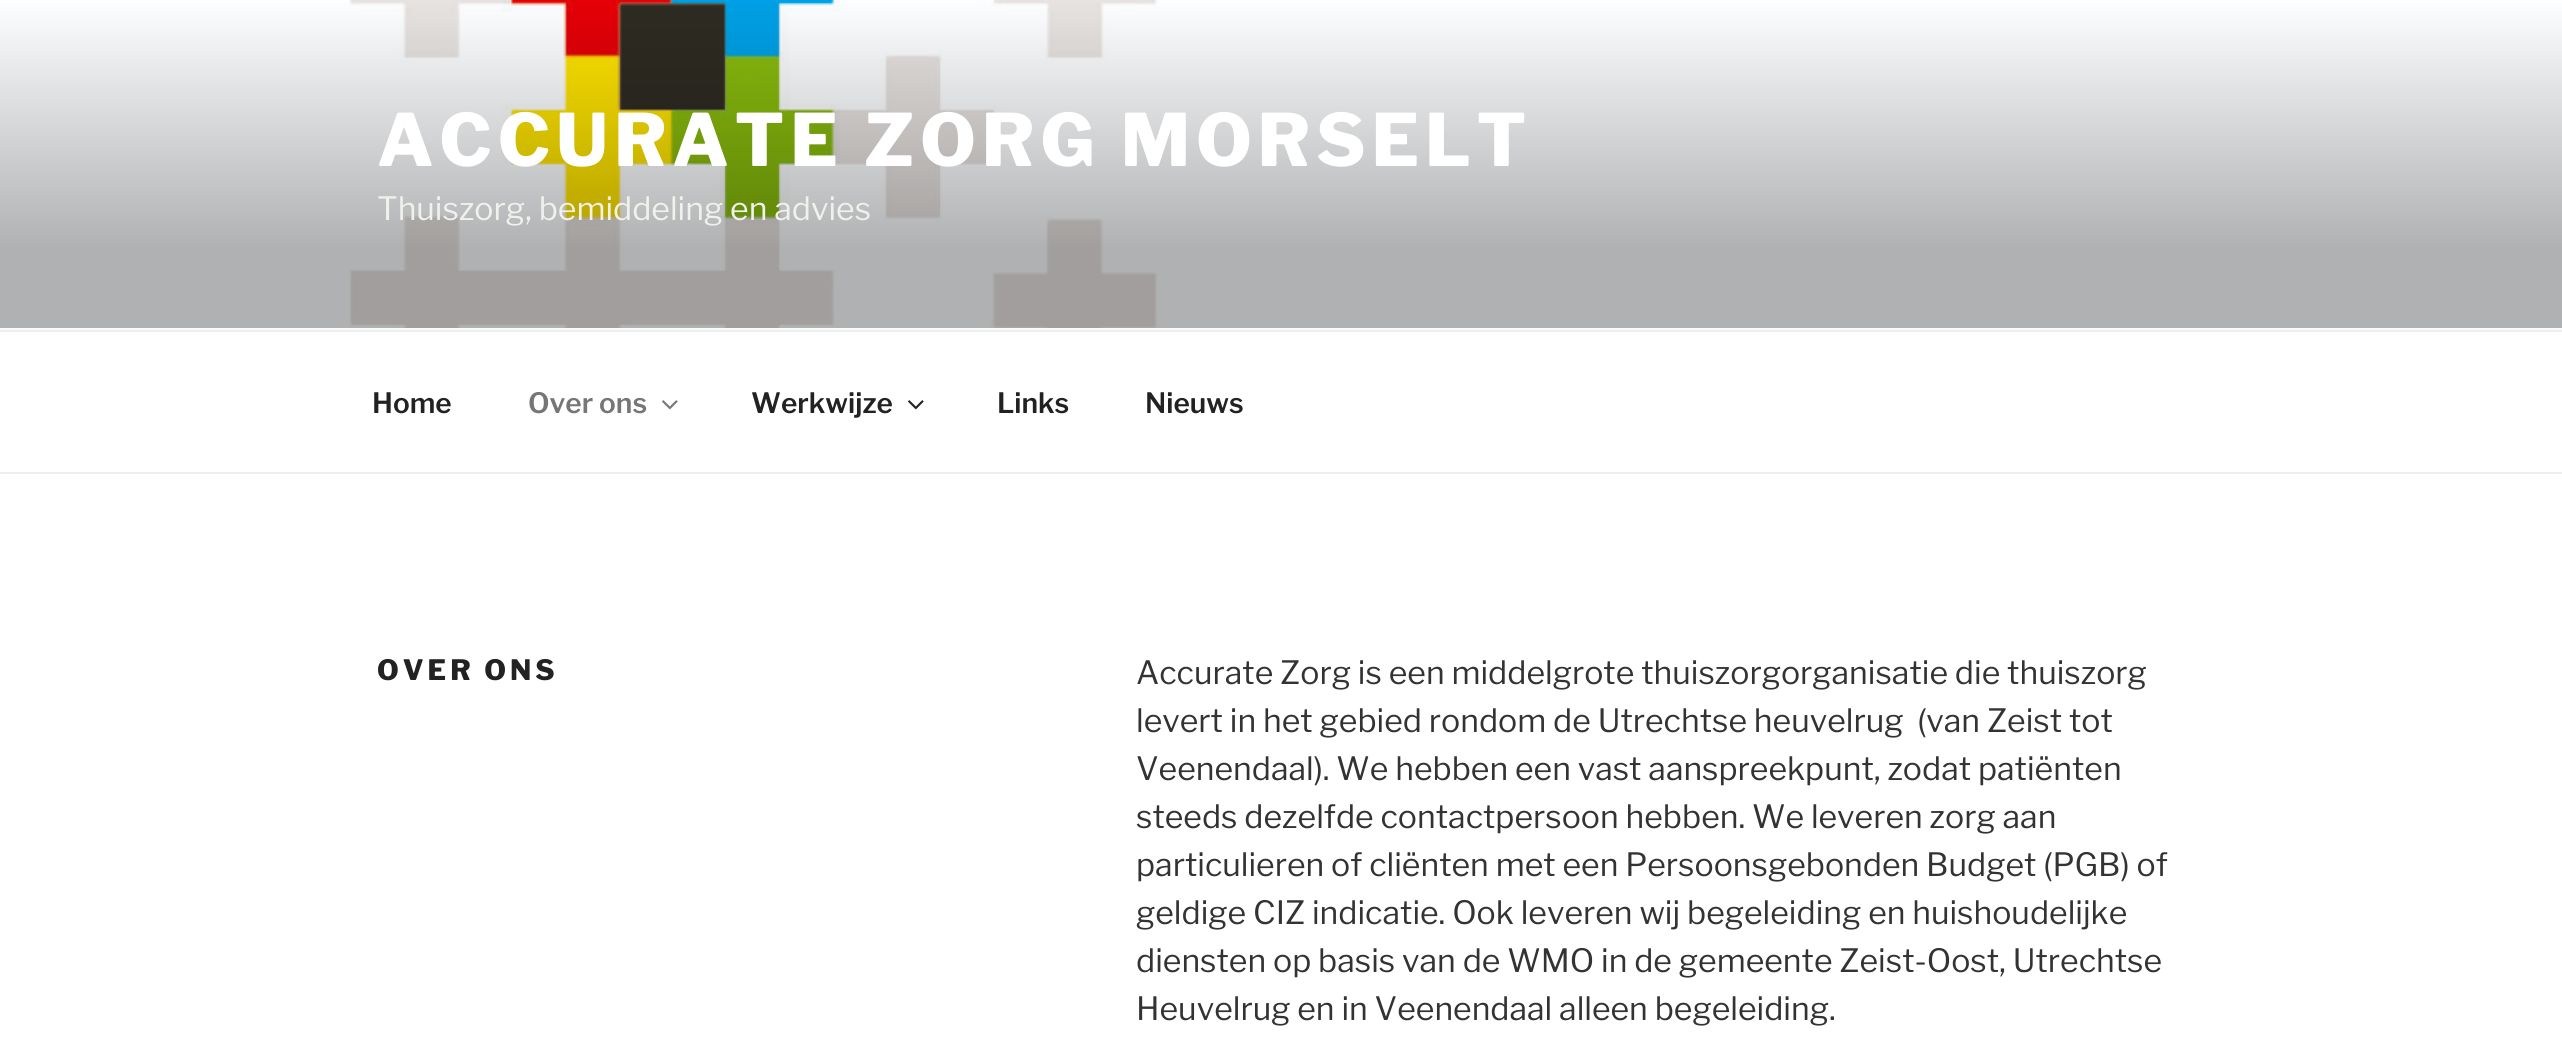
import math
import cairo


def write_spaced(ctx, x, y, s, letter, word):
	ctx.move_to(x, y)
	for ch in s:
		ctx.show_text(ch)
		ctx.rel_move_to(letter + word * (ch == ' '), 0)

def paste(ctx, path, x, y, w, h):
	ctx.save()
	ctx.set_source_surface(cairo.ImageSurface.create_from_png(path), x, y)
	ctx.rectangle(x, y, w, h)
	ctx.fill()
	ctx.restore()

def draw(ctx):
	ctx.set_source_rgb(1, 1, 1)
	ctx.paint()
	ctx.set_source_rgb(0.98, 0.98, 0.98)
	ctx.rectangle(0, 328, 2562, 2)
	ctx.fill()
	paste(ctx, 'media/1.png', 0, 0, 2562, 328)
	ctx.select_font_face('Libre Franklin Thin')
	ctx.set_font_size(72)
	ctx.set_source_rgb(1, 1, 1)
	write_spaced(ctx, 377, 166, 'ACCURATE ZORG MORSELT', 5.75, 0)
	ctx.select_font_face('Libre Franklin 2 Thin')
	ctx.set_font_size(32)
	ctx.set_source_rgb(0.941, 0.941, 0.922)
	ctx.move_to(377, 220)
	ctx.show_text('Thuiszorg, bemiddeling en advies')
	ctx.set_source_rgb(0.933, 0.933, 0.933)
	ctx.rectangle(0, 330, 2562, 2)
	ctx.fill()
	ctx.rectangle(0, 472, 2562, 2)
	ctx.fill()
	ctx.select_font_face('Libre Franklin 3 Thin')
	ctx.set_font_size(28)
	ctx.set_source_rgb(0.133, 0.133, 0.133)
	ctx.move_to(372, 413)
	ctx.show_text('Home')
	ctx.set_source_rgb(0.463, 0.463, 0.463)
	ctx.move_to(528, 413)
	ctx.show_text('Over ons')
	paste(ctx, 'media/2.png', 662, 400, 16, 10)
	ctx.set_source_rgb(0.133, 0.133, 0.133)
	ctx.move_to(751, 413)
	ctx.show_text('Werkwijze')
	paste(ctx, 'media/3.png', 908, 400, 16, 10)
	ctx.move_to(997, 413)
	ctx.show_text('Links')
	ctx.move_to(1145, 413)
	ctx.show_text('Nieuws')
	ctx.select_font_face('Libre Franklin Thin')
	write_spaced(ctx, 377, 680, 'OVER ONS', 4, 0)
	ctx.select_font_face('Libre Franklin 2 Thin')
	ctx.set_font_size(32)
	ctx.set_source_rgb(0.2, 0.2, 0.2)
	for x, y, s in [
		(1136, 684, 'Accurate Zorg is een middelgrote thuiszorgorganisatie die thuiszorg'),
		(1136, 732, 'levert in het gebied rondom de Utrechtse heuvelrug  (van Zeist tot'),
		(1136, 780, 'Veenendaal). We hebben een vast aanspreekpunt, zodat patiënten'),
		(1136, 828, 'steeds dezelfde contactpersoon hebben. We leveren zorg aan'),
		(1136, 876, 'particulieren of cliënten met een Persoonsgebonden Budget (PGB) of'),
		(1136, 924, 'geldige CIZ indicatie. Ook leveren wij begeleiding en huishoudelijke'),
		(1136, 972, 'diensten op basis van de WMO in de gemeente Zeist-Oost, Utrechtse'),
		(1136, 1020, 'Heuvelrug en in Veenendaal alleen begeleiding.'),
	]:
		ctx.move_to(x, y)
		ctx.show_text(s)


surface = cairo.ImageSurface(cairo.FORMAT_RGB24, 2562, 1052)
ctx = cairo.Context(surface)
options = cairo.FontOptions()
options.set_hint_metrics(cairo.HINT_METRICS_OFF)
options.set_hint_style(cairo.HINT_STYLE_NONE)
ctx.set_font_options(options)
ctx.set_miter_limit(4)
draw(ctx)
surface.write_to_png('image.png')
